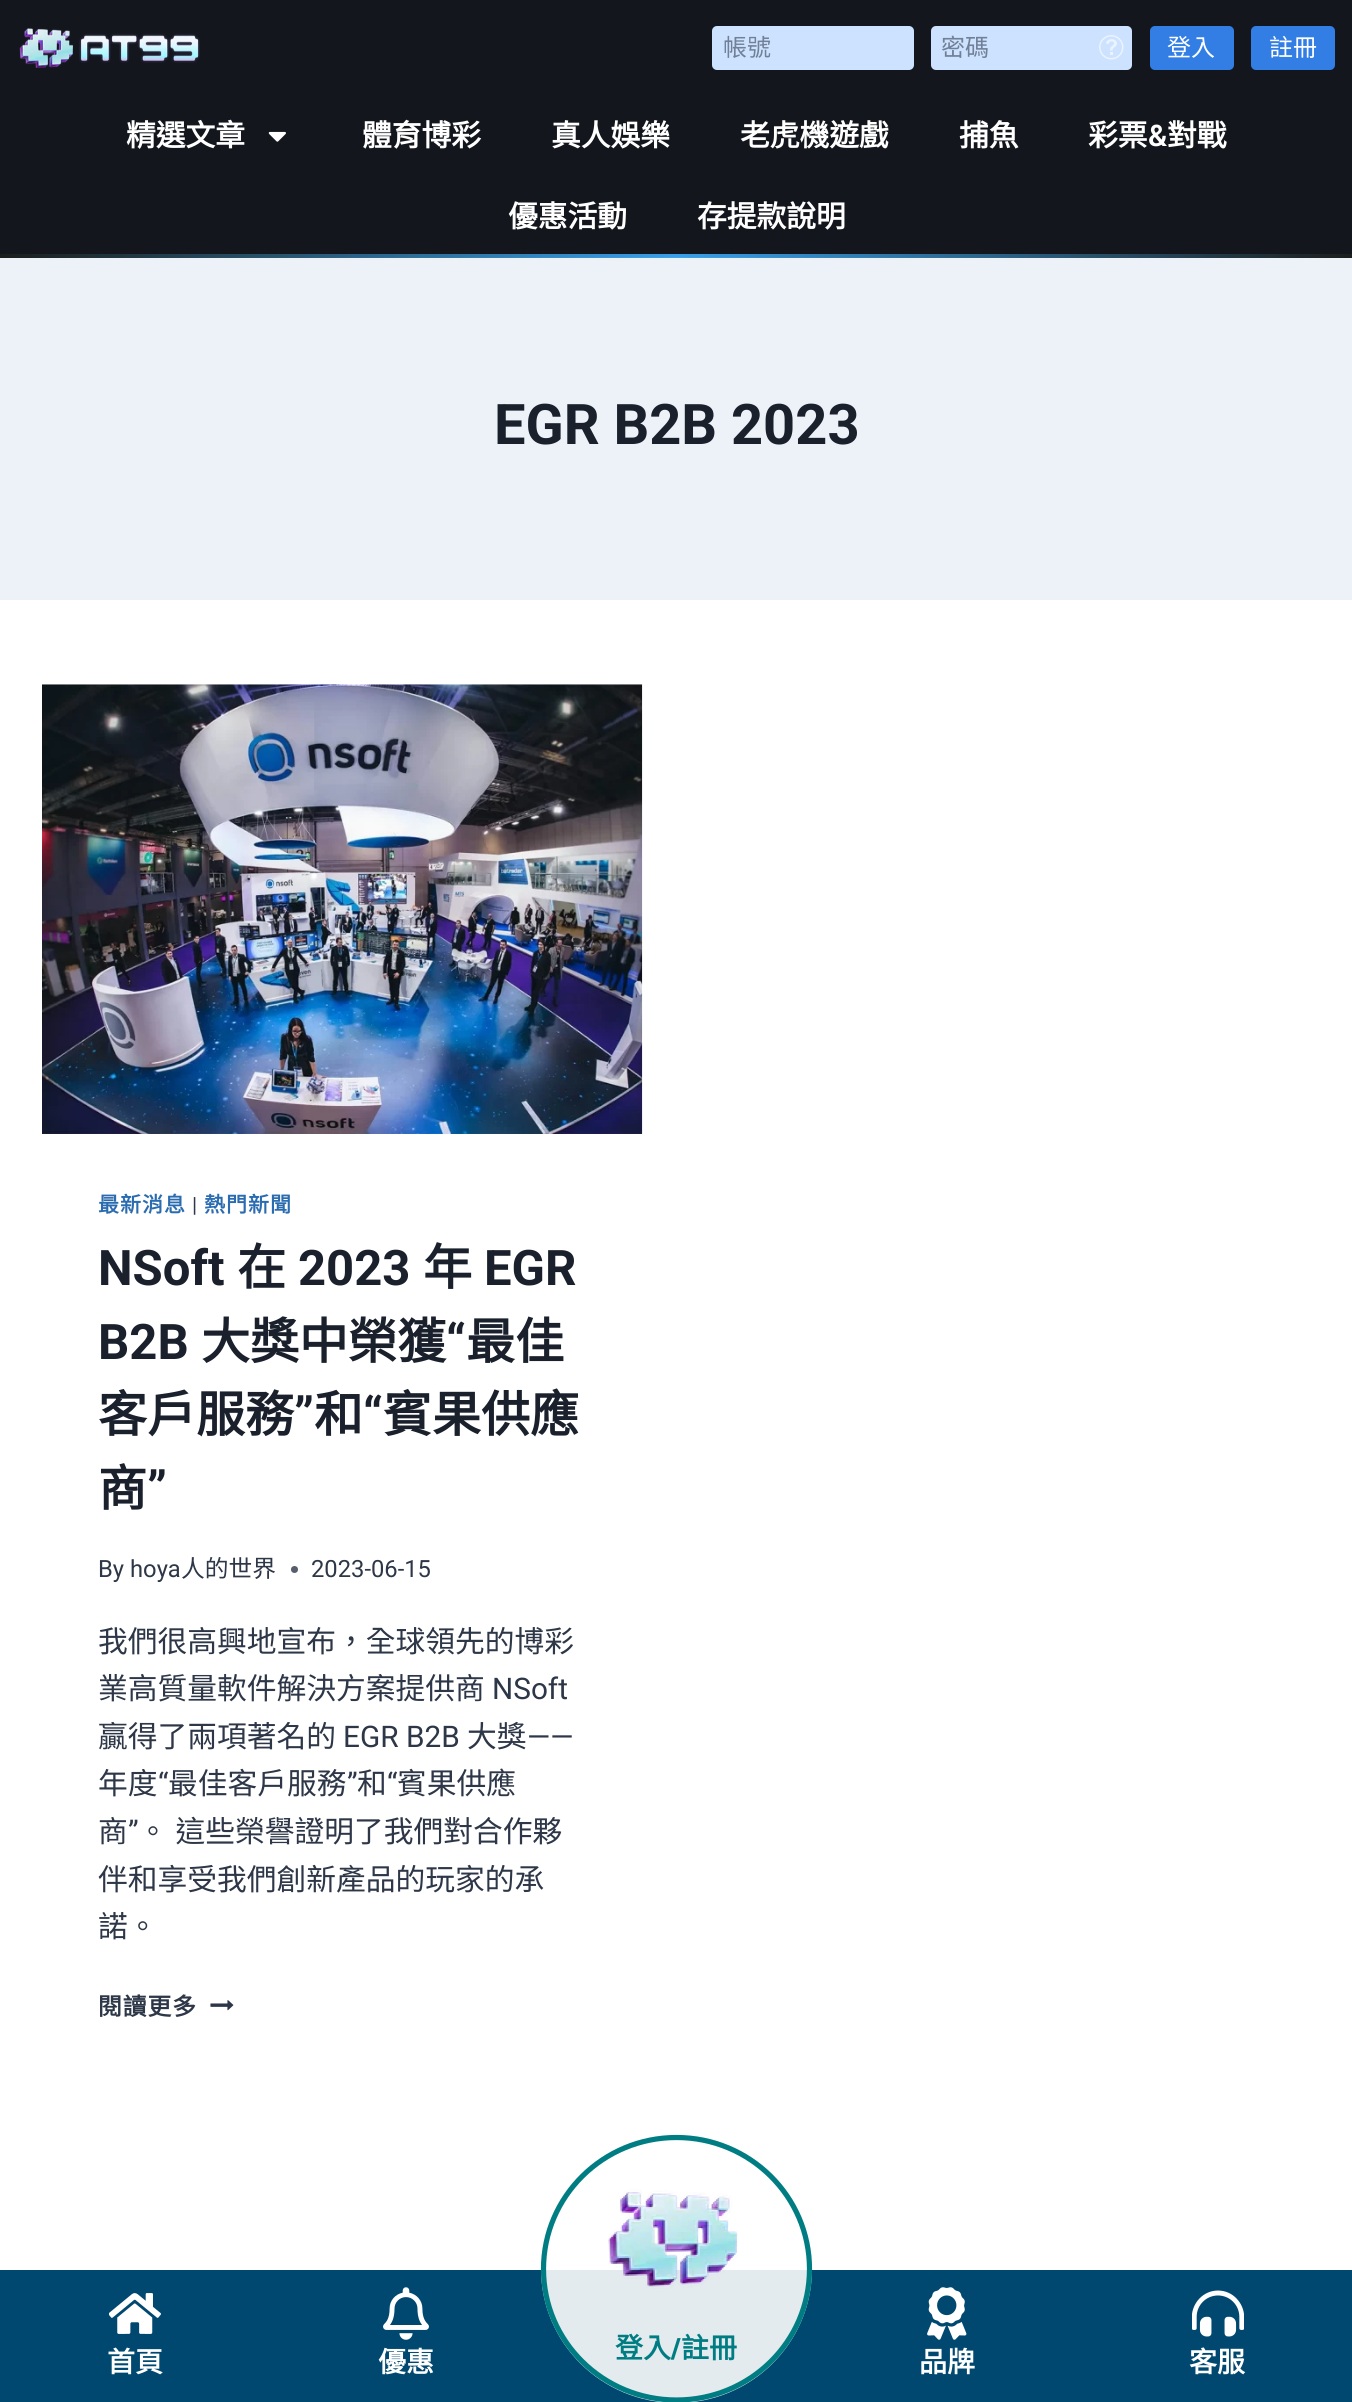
import math
import cairo


def write_spaced(ctx, x, y, s, letter, word):
	ctx.move_to(x, y)
	for ch in s:
		ctx.show_text(ch)
		ctx.rel_move_to(letter + word * (ch == ' '), 0)

def round_path(ctx, x, y, w, h, r):
	ctx.new_sub_path()
	for i, (u, v) in enumerate([(x + w - r, y + h - r), (x + r, y + h - r), (x + r, y + r), (x + w - r, y + r)]):
		ctx.arc(u, v, r, i * math.pi / 2, (i + 1) * math.pi / 2)
	ctx.close_path()

def paste(ctx, path, x, y, w, h):
	ctx.save()
	ctx.set_source_surface(cairo.ImageSurface.create_from_png(path), x, y)
	ctx.rectangle(x, y, w, h)
	ctx.fill()
	ctx.restore()

def draw(ctx):
	ctx.set_source_rgb(1, 1, 1)
	ctx.paint()
	ctx.set_source_rgb(0.078, 0.09, 0.114)
	ctx.rectangle(0, 0, 1352, 257)
	ctx.fill()
	paste(ctx, 'media/1.png', 19, 28, 181, 40)
	ctx.set_source_rgb(0.8, 0.886, 1)
	round_path(ctx, 712, 26, 202, 44, 5)
	ctx.fill()
	ctx.select_font_face('Noto Sans CJK TC')
	ctx.set_font_size(24)
	ctx.set_source_rgb(0.443, 0.502, 0.588)
	ctx.move_to(723, 56)
	ctx.show_text('帳號')
	ctx.set_source_rgb(0.8, 0.886, 1)
	round_path(ctx, 931, 26, 201, 44, 5)
	ctx.fill()
	ctx.set_source_rgb(0.443, 0.502, 0.588)
	ctx.move_to(941, 56)
	ctx.show_text('密碼')
	paste(ctx, 'media/2.png', 1099, 35, 25, 25)
	ctx.set_source_rgb(0.196, 0.494, 0.898)
	round_path(ctx, 1150, 26, 84, 44, 5)
	ctx.fill()
	ctx.set_source_rgb(1, 1, 1)
	ctx.move_to(1167, 56)
	ctx.show_text('登入')
	ctx.set_source_rgb(0.196, 0.494, 0.898)
	round_path(ctx, 1251, 26, 84, 44, 5)
	ctx.fill()
	ctx.set_source_rgb(1, 1, 1)
	ctx.move_to(1269, 56)
	ctx.show_text('註冊')
	ctx.select_font_face('Noto Sans CJK TC', cairo.FONT_SLANT_NORMAL, cairo.FONT_WEIGHT_BOLD)
	ctx.set_font_size(29.75)
	ctx.move_to(126, 146)
	ctx.show_text('精選文章')
	paste(ctx, 'media/3.png', 268, 131, 18, 11)
	for x, y, s in [
		(362, 146, '體育博彩'),
		(551, 146, '真人娛樂'),
		(740, 146, '老虎機遊戲'),
		(959, 146, '捕魚'),
		(1088, 146, '彩票'),
	]:
		ctx.move_to(x, y)
		ctx.show_text(s)
	ctx.select_font_face('Roboto SemiBold')
	ctx.move_to(1148, 146)
	ctx.show_text('&')
	ctx.select_font_face('Noto Sans CJK TC', cairo.FONT_SLANT_NORMAL, cairo.FONT_WEIGHT_BOLD)
	for x, y, s in [
		(1167, 146, '對戰'),
		(508, 227, '優惠活動'),
		(697, 227, '存提款說明'),
	]:
		ctx.move_to(x, y)
		ctx.show_text(s)
	ctx.set_source_rgb(0.929, 0.949, 0.969)
	ctx.rectangle(0, 257, 1352, 343)
	ctx.fill()
	gradient = cairo.LinearGradient(0, 256, 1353, 255)
	gradient.add_color_stop_rgba(0, 0.106, 0.118, 0.102, 1)
	gradient.add_color_stop_rgba(0.5, 0.227, 0.635, 0.925, 0.98)
	gradient.add_color_stop_rgba(1, 0.11, 0.118, 0.11, 1)
	ctx.set_source(gradient)
	ctx.rectangle(0, 254, 1352, 4)
	ctx.fill()
	ctx.select_font_face('Roboto', cairo.FONT_SLANT_NORMAL, cairo.FONT_WEIGHT_BOLD)
	ctx.set_font_size(56)
	ctx.set_source_rgb(0.102, 0.125, 0.173)
	ctx.move_to(494, 444)
	ctx.show_text('EGR B2B 2023')
	paste(ctx, 'media/4.png', 42, 684, 601, 450)
	ctx.select_font_face('Noto Sans CJK TC', cairo.FONT_SLANT_NORMAL, cairo.FONT_WEIGHT_BOLD)
	ctx.set_font_size(21)
	ctx.set_source_rgb(0.169, 0.424, 0.69)
	write_spaced(ctx, 98, 1212, '最新消息', 1, 0)
	ctx.select_font_face('Roboto')
	ctx.set_source_rgb(0.176, 0.216, 0.282)
	write_spaced(ctx, 192, 1212, '|', 1, 0)
	ctx.select_font_face('Noto Sans CJK TC', cairo.FONT_SLANT_NORMAL, cairo.FONT_WEIGHT_BOLD)
	ctx.set_source_rgb(0.169, 0.424, 0.69)
	write_spaced(ctx, 204, 1212, '熱門新聞', 1, 0)
	ctx.select_font_face('Roboto', cairo.FONT_SLANT_NORMAL, cairo.FONT_WEIGHT_BOLD)
	ctx.set_font_size(49)
	ctx.set_source_rgb(0.102, 0.125, 0.173)
	ctx.move_to(98, 1285)
	ctx.show_text('NSoft')
	ctx.select_font_face('Noto Sans CJK TC', cairo.FONT_SLANT_NORMAL, cairo.FONT_WEIGHT_BOLD)
	ctx.move_to(237, 1285)
	ctx.show_text('在')
	ctx.select_font_face('Roboto', cairo.FONT_SLANT_NORMAL, cairo.FONT_WEIGHT_BOLD)
	ctx.move_to(298, 1285)
	ctx.show_text('2023')
	ctx.select_font_face('Noto Sans CJK TC', cairo.FONT_SLANT_NORMAL, cairo.FONT_WEIGHT_BOLD)
	ctx.move_to(423, 1285)
	ctx.show_text('年')
	ctx.select_font_face('Roboto', cairo.FONT_SLANT_NORMAL, cairo.FONT_WEIGHT_BOLD)
	ctx.move_to(484, 1285)
	ctx.show_text('EGR')
	ctx.move_to(98, 1359)
	ctx.show_text('B2B')
	ctx.select_font_face('Noto Sans CJK TC', cairo.FONT_SLANT_NORMAL, cairo.FONT_WEIGHT_BOLD)
	ctx.move_to(201, 1359)
	ctx.show_text('大獎中榮獲')
	ctx.select_font_face('Roboto', cairo.FONT_SLANT_NORMAL, cairo.FONT_WEIGHT_BOLD)
	ctx.move_to(446, 1359)
	ctx.show_text('“')
	ctx.select_font_face('Noto Sans CJK TC', cairo.FONT_SLANT_NORMAL, cairo.FONT_WEIGHT_BOLD)
	ctx.move_to(466, 1359)
	ctx.show_text('最佳')
	ctx.move_to(98, 1432)
	ctx.show_text('客戶服務')
	ctx.select_font_face('Roboto', cairo.FONT_SLANT_NORMAL, cairo.FONT_WEIGHT_BOLD)
	ctx.move_to(294, 1432)
	ctx.show_text('”')
	ctx.select_font_face('Noto Sans CJK TC', cairo.FONT_SLANT_NORMAL, cairo.FONT_WEIGHT_BOLD)
	ctx.move_to(314, 1432)
	ctx.show_text('和')
	ctx.select_font_face('Roboto', cairo.FONT_SLANT_NORMAL, cairo.FONT_WEIGHT_BOLD)
	ctx.move_to(363, 1432)
	ctx.show_text('“')
	ctx.select_font_face('Noto Sans CJK TC', cairo.FONT_SLANT_NORMAL, cairo.FONT_WEIGHT_BOLD)
	ctx.move_to(383, 1432)
	ctx.show_text('賓果供應')
	ctx.move_to(98, 1506)
	ctx.show_text('商')
	ctx.select_font_face('Roboto', cairo.FONT_SLANT_NORMAL, cairo.FONT_WEIGHT_BOLD)
	ctx.move_to(147, 1506)
	ctx.show_text('”')
	ctx.select_font_face('Roboto')
	ctx.set_font_size(23.75)
	ctx.set_source_rgb(0.176, 0.216, 0.282)
	ctx.move_to(98, 1577)
	ctx.show_text('By')
	ctx.move_to(130, 1577)
	ctx.show_text('hoya')
	ctx.select_font_face('Noto Sans CJK TC')
	ctx.move_to(181, 1577)
	ctx.show_text('人的世界')
	ctx.set_source_rgb(0.341, 0.373, 0.427)
	ctx.new_path()
	ctx.arc(294.5, 1569.5, 3.5, 0, 2 * math.pi)
	ctx.fill()
	ctx.select_font_face('Roboto')
	ctx.set_source_rgb(0.176, 0.216, 0.282)
	ctx.move_to(311, 1577)
	ctx.show_text('2023-06-15')
	ctx.select_font_face('Noto Sans CJK TC')
	ctx.set_font_size(29.75)
	ctx.move_to(98, 1652)
	ctx.show_text('我們很高興地宣布，全球領先的博彩')
	ctx.move_to(98, 1699)
	ctx.show_text('業高質量軟件解決方案提供商')
	ctx.select_font_face('Roboto')
	ctx.move_to(492, 1699)
	ctx.show_text('NSoft')
	ctx.select_font_face('Noto Sans CJK TC')
	ctx.move_to(98, 1747)
	ctx.show_text('贏得了兩項著名的')
	ctx.select_font_face('Roboto')
	ctx.move_to(343, 1747)
	ctx.show_text('EGR B2B')
	ctx.select_font_face('Noto Sans CJK TC')
	ctx.move_to(467, 1747)
	ctx.show_text('大獎')
	ctx.select_font_face('Roboto')
	ctx.move_to(527, 1747)
	ctx.show_text('——')
	ctx.select_font_face('Noto Sans CJK TC')
	ctx.move_to(98, 1794)
	ctx.show_text('年度')
	ctx.select_font_face('Roboto')
	ctx.move_to(158, 1794)
	ctx.show_text('“')
	ctx.select_font_face('Noto Sans CJK TC')
	ctx.move_to(168, 1794)
	ctx.show_text('最佳客戶服務')
	ctx.select_font_face('Roboto')
	ctx.move_to(347, 1794)
	ctx.show_text('”')
	ctx.select_font_face('Noto Sans CJK TC')
	ctx.move_to(357, 1794)
	ctx.show_text('和')
	ctx.select_font_face('Roboto')
	ctx.move_to(387, 1794)
	ctx.show_text('“')
	ctx.select_font_face('Noto Sans CJK TC')
	ctx.move_to(397, 1794)
	ctx.show_text('賓果供應')
	ctx.move_to(98, 1842)
	ctx.show_text('商')
	ctx.select_font_face('Roboto')
	ctx.move_to(128, 1842)
	ctx.show_text('”')
	ctx.select_font_face('Noto Sans CJK TC')
	write_spaced(ctx, 138, 1842, '。 這些榮譽證明了我們對合作夥', 0, 1)
	ctx.move_to(98, 1890)
	ctx.show_text('伴和享受我們創新產品的玩家的承')
	ctx.move_to(98, 1937)
	ctx.show_text('諾。')
	ctx.select_font_face('Noto Sans CJK TC', cairo.FONT_SLANT_NORMAL, cairo.FONT_WEIGHT_BOLD)
	ctx.set_font_size(23.75)
	write_spaced(ctx, 98, 2015, '閱讀更多', 1, 0)
	paste(ctx, 'media/5.png', 210, 2000, 24, 11)
	ctx.set_source_rgb(0, 0.282, 0.435)
	ctx.rectangle(0, 2270, 1352, 132)
	ctx.fill()
	paste(ctx, 'media/6.png', 109, 2293, 52, 41)
	ctx.set_font_size(28)
	ctx.set_source_rgb(1, 1, 1)
	ctx.move_to(107, 2372)
	ctx.show_text('首頁')
	paste(ctx, 'media/7.png', 383, 2287, 46, 53)
	ctx.move_to(378, 2372)
	ctx.show_text('優惠')
	ctx.set_source_rgba(1, 1, 1, 0.89)
	ctx.new_path()
	ctx.move_to(676.5, 2135)
	ctx.curve_to(751.5, 2135, 812, 2195, 812, 2269)
	ctx.curve_to(812, 2343, 751.5, 2403, 676.5, 2403)
	ctx.curve_to(601.5, 2403, 541, 2343, 541, 2269)
	ctx.curve_to(541, 2195, 601.5, 2135, 676.5, 2135)
	ctx.close_path()
	ctx.fill()
	ctx.new_path()
	ctx.move_to(676.5, 2137.5)
	ctx.curve_to(750, 2137.5, 809.5, 2196.5, 809.5, 2269)
	ctx.curve_to(809.5, 2341.5, 750, 2400, 676.5, 2400)
	ctx.curve_to(603, 2400, 543.5, 2341.5, 543.5, 2269)
	ctx.curve_to(543.5, 2196.5, 603, 2137.5, 676.5, 2137.5)
	ctx.close_path()
	ctx.set_source_rgb(0, 0.49, 0.514)
	ctx.set_line_width(5.2)
	ctx.stroke()
	paste(ctx, 'media/8.png', 608, 2189, 130, 100)
	ctx.move_to(615, 2358)
	ctx.show_text('登入')
	ctx.select_font_face('Roboto Black')
	ctx.move_to(671, 2358)
	ctx.show_text('/')
	ctx.select_font_face('Noto Sans CJK TC', cairo.FONT_SLANT_NORMAL, cairo.FONT_WEIGHT_BOLD)
	ctx.move_to(681, 2358)
	ctx.show_text('註冊')
	paste(ctx, 'media/9.png', 927, 2287, 40, 53)
	ctx.set_source_rgb(1, 1, 1)
	ctx.move_to(919, 2372)
	ctx.show_text('品牌')
	paste(ctx, 'media/10.png', 1192, 2290, 52, 47)
	ctx.move_to(1189, 2372)
	ctx.show_text('客服')


surface = cairo.ImageSurface(cairo.FORMAT_RGB24, 1352, 2402)
ctx = cairo.Context(surface)
options = cairo.FontOptions()
options.set_hint_metrics(cairo.HINT_METRICS_OFF)
options.set_hint_style(cairo.HINT_STYLE_NONE)
ctx.set_font_options(options)
ctx.set_miter_limit(4)
draw(ctx)
surface.write_to_png('image.png')
